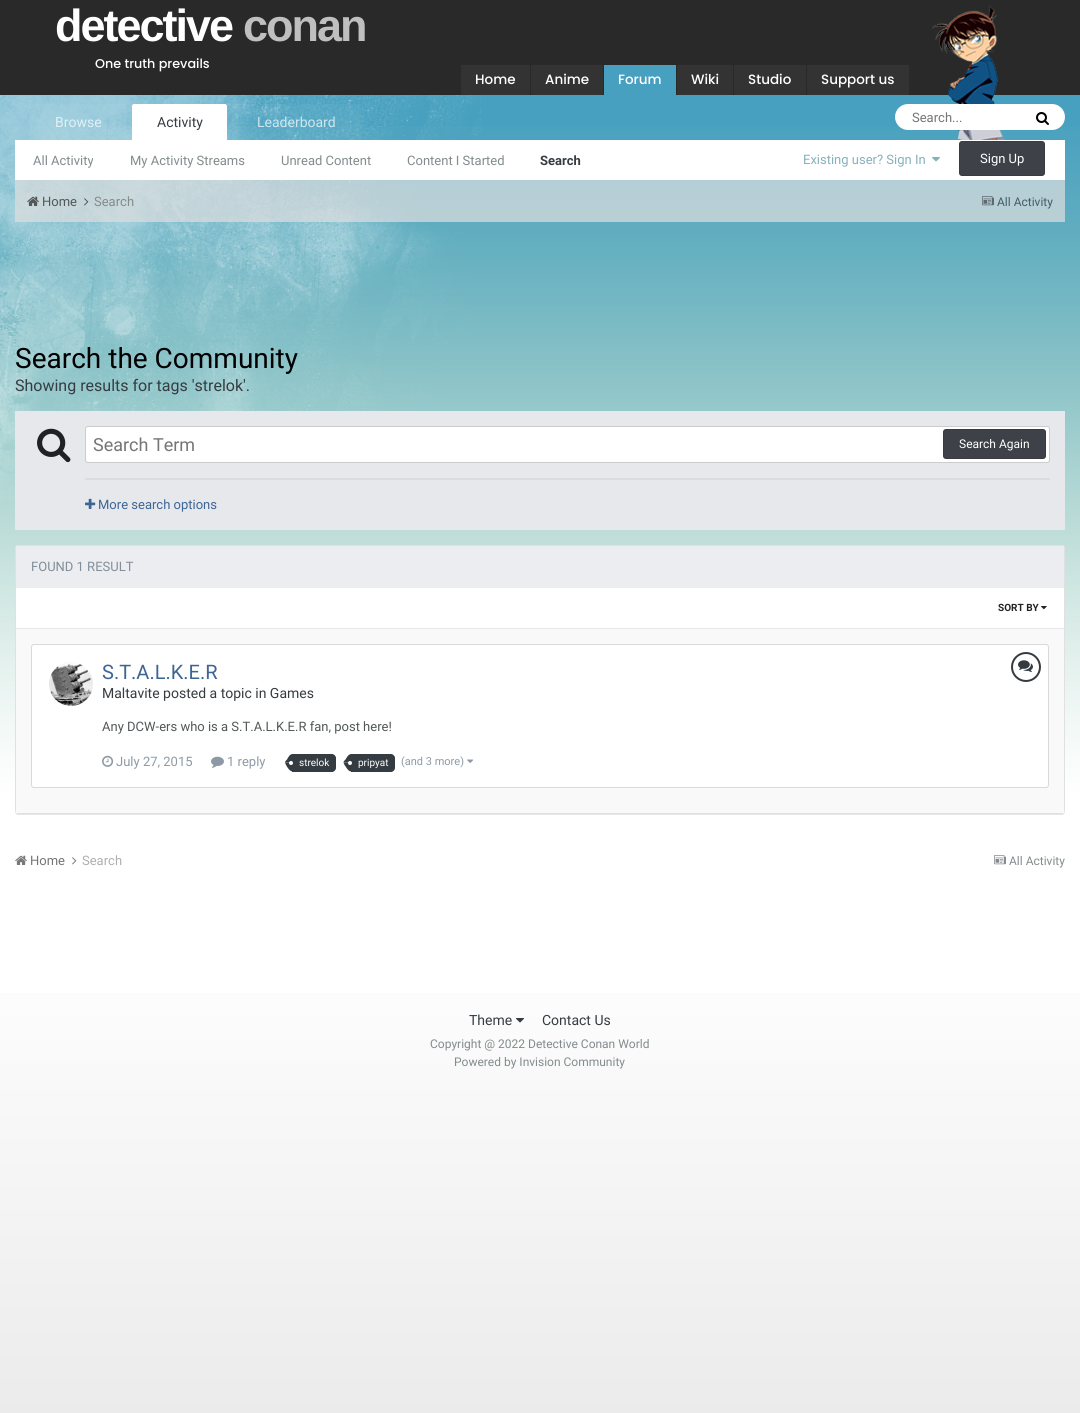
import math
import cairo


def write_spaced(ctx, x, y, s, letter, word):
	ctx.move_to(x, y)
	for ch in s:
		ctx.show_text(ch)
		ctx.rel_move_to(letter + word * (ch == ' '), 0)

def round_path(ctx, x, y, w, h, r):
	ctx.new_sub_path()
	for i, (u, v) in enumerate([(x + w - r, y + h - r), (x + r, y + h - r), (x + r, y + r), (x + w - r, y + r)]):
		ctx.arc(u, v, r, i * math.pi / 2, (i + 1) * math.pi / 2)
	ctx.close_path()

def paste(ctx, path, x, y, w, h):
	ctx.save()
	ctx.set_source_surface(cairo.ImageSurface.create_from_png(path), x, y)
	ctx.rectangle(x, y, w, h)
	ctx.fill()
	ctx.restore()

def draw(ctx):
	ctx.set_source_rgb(1, 1, 1)
	ctx.paint()
	gradient = cairo.LinearGradient(540, 0, 540, 1413)
	gradient.add_color_stop_rgba(0, 1, 1, 1, 1)
	gradient.add_color_stop_rgba(0.66, 1, 1, 1, 1)
	gradient.add_color_stop_rgba(1, 0.922, 0.922, 0.922, 1)
	ctx.set_source(gradient)
	ctx.rectangle(0, 993, 1080, 420)
	ctx.fill()
	ctx.set_source_rgb(0.161, 0.161, 0.161)
	ctx.rectangle(0, 0, 1080, 95)
	ctx.fill()
	ctx.select_font_face('Liberation Sans', cairo.FONT_SLANT_NORMAL, cairo.FONT_WEIGHT_BOLD)
	ctx.set_font_size(45)
	ctx.set_source_rgb(1, 1, 1)
	write_spaced(ctx, 55, 41, 'detective', -2, 0)
	ctx.set_source_rgb(0.749, 0.749, 0.749)
	write_spaced(ctx, 243, 41, 'conan', -2, 0)
	ctx.select_font_face('Poppins Medium')
	ctx.set_font_size(12.75)
	ctx.set_source_rgb(1, 1, 1)
	ctx.move_to(95, 68)
	ctx.show_text('One truth prevails')
	ctx.set_source_rgb(0.2, 0.2, 0.2)
	ctx.rectangle(461, 65, 69, 30)
	ctx.fill()
	ctx.set_font_size(13.5)
	ctx.set_source_rgb(1, 1, 1)
	ctx.move_to(475, 84)
	ctx.show_text('Home')
	ctx.set_source_rgb(0.2, 0.2, 0.2)
	ctx.rectangle(531, 65, 72, 30)
	ctx.fill()
	ctx.set_source_rgb(1, 1, 1)
	ctx.move_to(545, 84)
	ctx.show_text('Anime')
	ctx.set_source_rgb(0.278, 0.627, 0.749)
	ctx.rectangle(604, 65, 72, 30)
	ctx.fill()
	ctx.set_source_rgb(1, 1, 1)
	ctx.move_to(618, 84)
	ctx.show_text('Forum')
	ctx.set_source_rgb(0.2, 0.2, 0.2)
	ctx.rectangle(677, 65, 56, 30)
	ctx.fill()
	ctx.set_source_rgb(1, 1, 1)
	ctx.move_to(691, 84)
	ctx.show_text('Wiki')
	ctx.set_source_rgb(0.2, 0.2, 0.2)
	ctx.rectangle(734, 65, 72, 30)
	ctx.fill()
	ctx.set_source_rgb(1, 1, 1)
	ctx.move_to(748, 84)
	ctx.show_text('Studio')
	ctx.set_source_rgb(0.2, 0.2, 0.2)
	ctx.rectangle(807, 65, 102, 30)
	ctx.fill()
	ctx.set_source_rgb(1, 1, 1)
	ctx.move_to(821, 84)
	ctx.show_text('Support us')
	ctx.set_source_rgb(0.278, 0.627, 0.749)
	ctx.rectangle(0, 95, 1080, 698)
	ctx.fill()
	paste(ctx, 'media/19.png', 0, 126, 1080, 674)
	paste(ctx, 'media/1.png', 932, 5, 72, 135)
	paste(ctx, 'media/20.png', 0, 95, 481, 406)
	ctx.set_source_rgb(1, 1, 1)
	ctx.rectangle(15, 140, 1050, 40)
	ctx.fill()
	ctx.new_path()
	ctx.move_to(134, 104)
	ctx.line_to(225, 104)
	ctx.curve_to(226, 104, 227, 105, 227, 106)
	ctx.line_to(227, 140)
	ctx.line_to(132, 140)
	ctx.line_to(132, 106)
	ctx.curve_to(132, 105, 133, 104, 134, 104)
	ctx.close_path()
	ctx.fill()
	ctx.select_font_face('Roboto')
	ctx.set_font_size(14)
	ctx.set_source_rgb(0.208, 0.235, 0.255)
	ctx.move_to(157, 127)
	ctx.show_text('Activity')
	ctx.set_font_size(13)
	ctx.set_source_rgb(0.51, 0.545, 0.553)
	for x, y, s in [
		(33, 165, 'All Activity'),
		(130, 165, 'My Activity Streams'),
		(281, 165, 'Unread Content'),
		(407, 165, 'Content I Started'),
	]:
		ctx.move_to(x, y)
		ctx.show_text(s)
	ctx.select_font_face('Roboto', cairo.FONT_SLANT_NORMAL, cairo.FONT_WEIGHT_BOLD)
	ctx.set_source_rgb(0.208, 0.235, 0.255)
	ctx.move_to(540, 165)
	ctx.show_text('Search')
	ctx.set_source_rgba(1, 1, 1, 0.04)
	ctx.rectangle(30, 104, 97, 36)
	ctx.fill()
	ctx.select_font_face('Roboto')
	ctx.set_font_size(14)
	ctx.set_source_rgb(0.886, 0.941, 0.961)
	ctx.move_to(55, 127)
	ctx.show_text('Browse')
	ctx.set_source_rgba(1, 1, 1, 0.04)
	ctx.rectangle(232, 104, 129, 36)
	ctx.fill()
	ctx.set_source_rgb(0.808, 0.902, 0.933)
	ctx.move_to(257, 127)
	ctx.show_text('Leaderboard')
	ctx.set_source_rgb(1, 1, 1)
	round_path(ctx, 895, 104, 170, 26, 13)
	ctx.fill()
	ctx.set_font_size(13)
	ctx.set_source_rgb(0.459, 0.459, 0.459)
	ctx.move_to(912, 122)
	ctx.show_text('Search...')
	paste(ctx, 'media/2.png', 1036, 112, 13, 13)
	ctx.set_source_rgb(0.522, 0.694, 0.741)
	ctx.move_to(803, 164)
	ctx.show_text('Existing user? Sign In')
	paste(ctx, 'media/3.png', 932, 157, 8, 5)
	ctx.set_source_rgb(0.243, 0.255, 0.282)
	round_path(ctx, 959, 141, 86, 35, 3)
	ctx.fill()
	round_path(ctx, 959.5, 141.5, 85, 34, 2.5)
	ctx.set_source_rgba(0, 0, 0, 0.1)
	ctx.set_line_width(1)
	ctx.stroke()
	ctx.set_source_rgb(1, 1, 1)
	ctx.move_to(980, 163)
	ctx.show_text('Sign Up')
	ctx.set_source_rgba(0.875, 0.875, 0.875, 0.7)
	ctx.rectangle(15, 180, 1050, 42)
	ctx.fill()
	paste(ctx, 'media/4.png', 27, 196, 12, 10)
	ctx.set_source_rgb(0.322, 0.341, 0.345)
	ctx.move_to(42, 206)
	ctx.show_text('Home')
	paste(ctx, 'media/5.png', 84, 198, 5, 8)
	ctx.set_source_rgb(0.51, 0.545, 0.553)
	ctx.move_to(94, 206)
	ctx.show_text('Search')
	paste(ctx, 'media/6.png', 982, 196, 12, 10)
	ctx.set_font_size(12)
	ctx.set_source_rgb(0.251, 0.365, 0.404)
	ctx.move_to(997, 206)
	ctx.show_text('All Activity')
	ctx.set_font_size(28)
	ctx.set_source_rgb(0, 0, 0)
	ctx.move_to(15, 368)
	ctx.show_text('Search the Community')
	ctx.set_font_size(16)
	ctx.set_source_rgb(0.208, 0.235, 0.255)
	ctx.move_to(15, 391)
	ctx.show_text('Showing results for tags \'strelok\'.')
	ctx.set_source_rgb(0.902, 0.91, 0.922)
	ctx.rectangle(15, 411, 1050, 119)
	ctx.fill()
	paste(ctx, 'media/7.png', 37, 428, 34, 35)
	ctx.set_source_rgb(1, 1, 1)
	round_path(ctx, 85, 426, 965, 37, 3)
	ctx.fill()
	round_path(ctx, 85.5, 426.5, 964, 36, 2.5)
	ctx.set_source_rgba(0, 0, 0, 0.2)
	ctx.stroke()
	ctx.set_font_size(18)
	ctx.set_source_rgb(0.459, 0.459, 0.459)
	ctx.move_to(93, 451)
	ctx.show_text('Search Term')
	ctx.set_source_rgb(0.243, 0.255, 0.282)
	round_path(ctx, 943, 429, 103, 30, 3)
	ctx.fill()
	round_path(ctx, 943.5, 429.5, 102, 29, 2.5)
	ctx.set_source_rgba(0, 0, 0, 0.1)
	ctx.stroke()
	ctx.set_font_size(12)
	ctx.set_source_rgb(1, 1, 1)
	ctx.move_to(959, 448)
	ctx.show_text('Search Again')
	ctx.set_source_rgb(0.859, 0.863, 0.875)
	ctx.rectangle(85, 478, 965, 2)
	ctx.fill()
	paste(ctx, 'media/8.png', 85, 498, 11, 11)
	ctx.set_font_size(13)
	ctx.set_source_rgb(0.239, 0.396, 0.58)
	ctx.move_to(98, 509)
	ctx.show_text('More search options')
	ctx.set_source_rgb(0.902, 0.902, 0.902)
	ctx.new_path()
	ctx.move_to(15, 811)
	ctx.curve_to(15, 813, 16, 815, 18, 815)
	ctx.line_to(1062, 815)
	ctx.curve_to(1064, 815, 1065, 813, 1065, 811)
	ctx.curve_to(1065, 813, 1064, 814, 1062, 814)
	ctx.line_to(18, 814)
	ctx.curve_to(16, 814, 15, 813, 15, 811)
	ctx.close_path()
	ctx.fill()
	ctx.set_source_rgb(1, 1, 1)
	round_path(ctx, 15.5, 545.5, 1049, 268, 2.5)
	ctx.fill_preserve()
	ctx.set_source_rgb(0.878, 0.878, 0.878)
	ctx.stroke()
	ctx.set_source_rgb(0.922, 0.929, 0.941)
	ctx.new_path()
	ctx.move_to(18, 546)
	ctx.line_to(1062, 546)
	ctx.curve_to(1063, 546, 1064, 547, 1064, 548)
	ctx.line_to(1064, 588)
	ctx.line_to(16, 588)
	ctx.line_to(16, 548)
	ctx.curve_to(16, 547, 17, 546, 18, 546)
	ctx.close_path()
	ctx.fill()
	ctx.set_source_rgb(0.51, 0.557, 0.6)
	ctx.move_to(31, 571)
	ctx.show_text('FOUND 1 RESULT')
	ctx.set_source_rgb(0.902, 0.902, 0.902)
	ctx.rectangle(16, 628, 1048, 1)
	ctx.fill()
	ctx.select_font_face('Roboto', cairo.FONT_SLANT_NORMAL, cairo.FONT_WEIGHT_BOLD)
	ctx.set_font_size(10)
	ctx.set_source_rgb(0.133, 0.133, 0.133)
	ctx.move_to(998, 611)
	ctx.show_text('SORT BY')
	paste(ctx, 'media/9.png', 1041, 606, 6, 4)
	ctx.set_source_rgb(0.973, 0.973, 0.973)
	ctx.rectangle(16, 629, 1048, 184)
	ctx.fill()
	ctx.set_source_rgb(1, 1, 1)
	round_path(ctx, 31.5, 644.5, 1017, 143, 2.5)
	ctx.fill_preserve()
	ctx.set_source_rgb(0.851, 0.851, 0.851)
	ctx.stroke()
	paste(ctx, 'media/10.png', 49, 662, 44, 44)
	ctx.select_font_face('Roboto')
	ctx.set_font_size(20)
	ctx.set_source_rgb(0.239, 0.396, 0.58)
	ctx.move_to(102, 679)
	ctx.show_text('S.T.A.L.K.E.R')
	ctx.set_font_size(14)
	ctx.set_source_rgb(0.208, 0.235, 0.255)
	ctx.move_to(102, 698)
	ctx.show_text('Maltavite posted a topic in Games')
	ctx.new_path()
	ctx.arc(1026, 667, 14, 0, 2 * math.pi)
	ctx.set_line_width(2)
	ctx.stroke()
	paste(ctx, 'media/11.png', 1018, 660, 15, 12)
	ctx.set_font_size(13)
	ctx.set_source_rgb(0.322, 0.341, 0.345)
	ctx.move_to(102, 731)
	ctx.show_text('Any DCW-ers who is a S.T.A.L.K.E.R fan, post here!')
	paste(ctx, 'media/12.png', 102, 755, 12, 12)
	ctx.set_source_rgb(0.553, 0.604, 0.651)
	ctx.move_to(116, 766)
	ctx.show_text('July 27, 2015')
	paste(ctx, 'media/13.png', 211, 756, 13, 12)
	ctx.move_to(227, 766)
	ctx.show_text('1 reply')
	ctx.set_source_rgb(0.208, 0.235, 0.255)
	ctx.new_path()
	ctx.move_to(292, 754)
	ctx.line_to(332, 754)
	ctx.curve_to(334, 754, 336, 756, 336, 758)
	ctx.line_to(336, 768)
	ctx.curve_to(336, 770, 334, 772, 332, 772)
	ctx.line_to(292, 772)
	ctx.close_path()
	ctx.fill()
	ctx.new_path()
	ctx.move_to(293, 771.5)
	ctx.curve_to(289.5, 771.5, 287.5, 767.5, 286, 765)
	ctx.line_to(285, 762.5)
	ctx.line_to(293, 762.5)
	ctx.close_path()
	ctx.fill()
	ctx.new_path()
	ctx.move_to(286.5, 760)
	ctx.line_to(287, 759.5)
	ctx.curve_to(288.5, 757, 289.5, 754, 293, 754)
	ctx.line_to(293, 762.5)
	ctx.line_to(285, 762.5)
	ctx.curve_to(285, 761.5, 286, 760.5, 286.5, 760)
	ctx.close_path()
	ctx.fill()
	ctx.set_font_size(10)
	ctx.set_source_rgb(1, 1, 1)
	ctx.move_to(299, 766)
	ctx.show_text('strelok')
	ctx.new_path()
	ctx.arc(291, 763, 2, 0, 2 * math.pi)
	ctx.fill()
	ctx.set_source_rgb(0.208, 0.235, 0.255)
	ctx.new_path()
	ctx.move_to(351, 754)
	ctx.line_to(391, 754)
	ctx.curve_to(393, 754, 395, 756, 395, 758)
	ctx.line_to(395, 768)
	ctx.curve_to(395, 770, 393, 772, 391, 772)
	ctx.line_to(351, 772)
	ctx.close_path()
	ctx.fill()
	ctx.new_path()
	ctx.move_to(351.5, 771.5)
	ctx.curve_to(348, 771.5, 346.5, 767.5, 344.5, 765)
	ctx.line_to(343.5, 762.5)
	ctx.line_to(351.5, 762.5)
	ctx.close_path()
	ctx.fill()
	ctx.new_path()
	ctx.move_to(345, 760)
	ctx.line_to(345.5, 759.5)
	ctx.curve_to(347, 757, 348.5, 754, 351.5, 754)
	ctx.line_to(351.5, 762.5)
	ctx.line_to(343.5, 762.5)
	ctx.curve_to(343.5, 761.5, 344.5, 760.5, 345, 760)
	ctx.close_path()
	ctx.fill()
	ctx.set_source_rgb(1, 1, 1)
	ctx.move_to(358, 766)
	ctx.show_text('pripyat')
	ctx.new_path()
	ctx.arc(350, 763, 2, 0, 2 * math.pi)
	ctx.fill()
	ctx.set_font_size(11)
	ctx.set_source_rgb(0.553, 0.604, 0.651)
	ctx.move_to(401, 765)
	ctx.show_text('(and 3 more)')
	paste(ctx, 'media/14.png', 467, 759, 7, 4)
	paste(ctx, 'media/15.png', 15, 855, 12, 10)
	ctx.set_font_size(13)
	ctx.set_source_rgb(0.459, 0.459, 0.459)
	ctx.move_to(30, 865)
	ctx.show_text('Home')
	paste(ctx, 'media/16.png', 72, 857, 5, 8)
	ctx.set_source_rgb(0.686, 0.686, 0.686)
	ctx.move_to(82, 865)
	ctx.show_text('Search')
	paste(ctx, 'media/17.png', 994, 855, 12, 10)
	ctx.set_font_size(12)
	ctx.set_source_rgb(0.51, 0.545, 0.553)
	ctx.move_to(1009, 865)
	ctx.show_text('All Activity')
	ctx.set_font_size(14)
	ctx.set_source_rgb(0.208, 0.235, 0.255)
	ctx.move_to(469, 1025)
	ctx.show_text('Theme')
	paste(ctx, 'media/18.png', 516, 1018, 8, 5)
	ctx.move_to(542, 1025)
	ctx.show_text('Contact Us')
	ctx.set_font_size(12)
	ctx.set_source_rgb(0.51, 0.545, 0.553)
	ctx.move_to(430, 1048)
	ctx.show_text('Copyright @ 2022 Detective Conan World')
	ctx.move_to(454, 1066)
	ctx.show_text('Powered by Invision Community')


surface = cairo.ImageSurface(cairo.FORMAT_RGB24, 1080, 1413)
ctx = cairo.Context(surface)
options = cairo.FontOptions()
options.set_hint_metrics(cairo.HINT_METRICS_OFF)
options.set_hint_style(cairo.HINT_STYLE_NONE)
ctx.set_font_options(options)
ctx.set_miter_limit(4)
draw(ctx)
surface.write_to_png('image.png')
